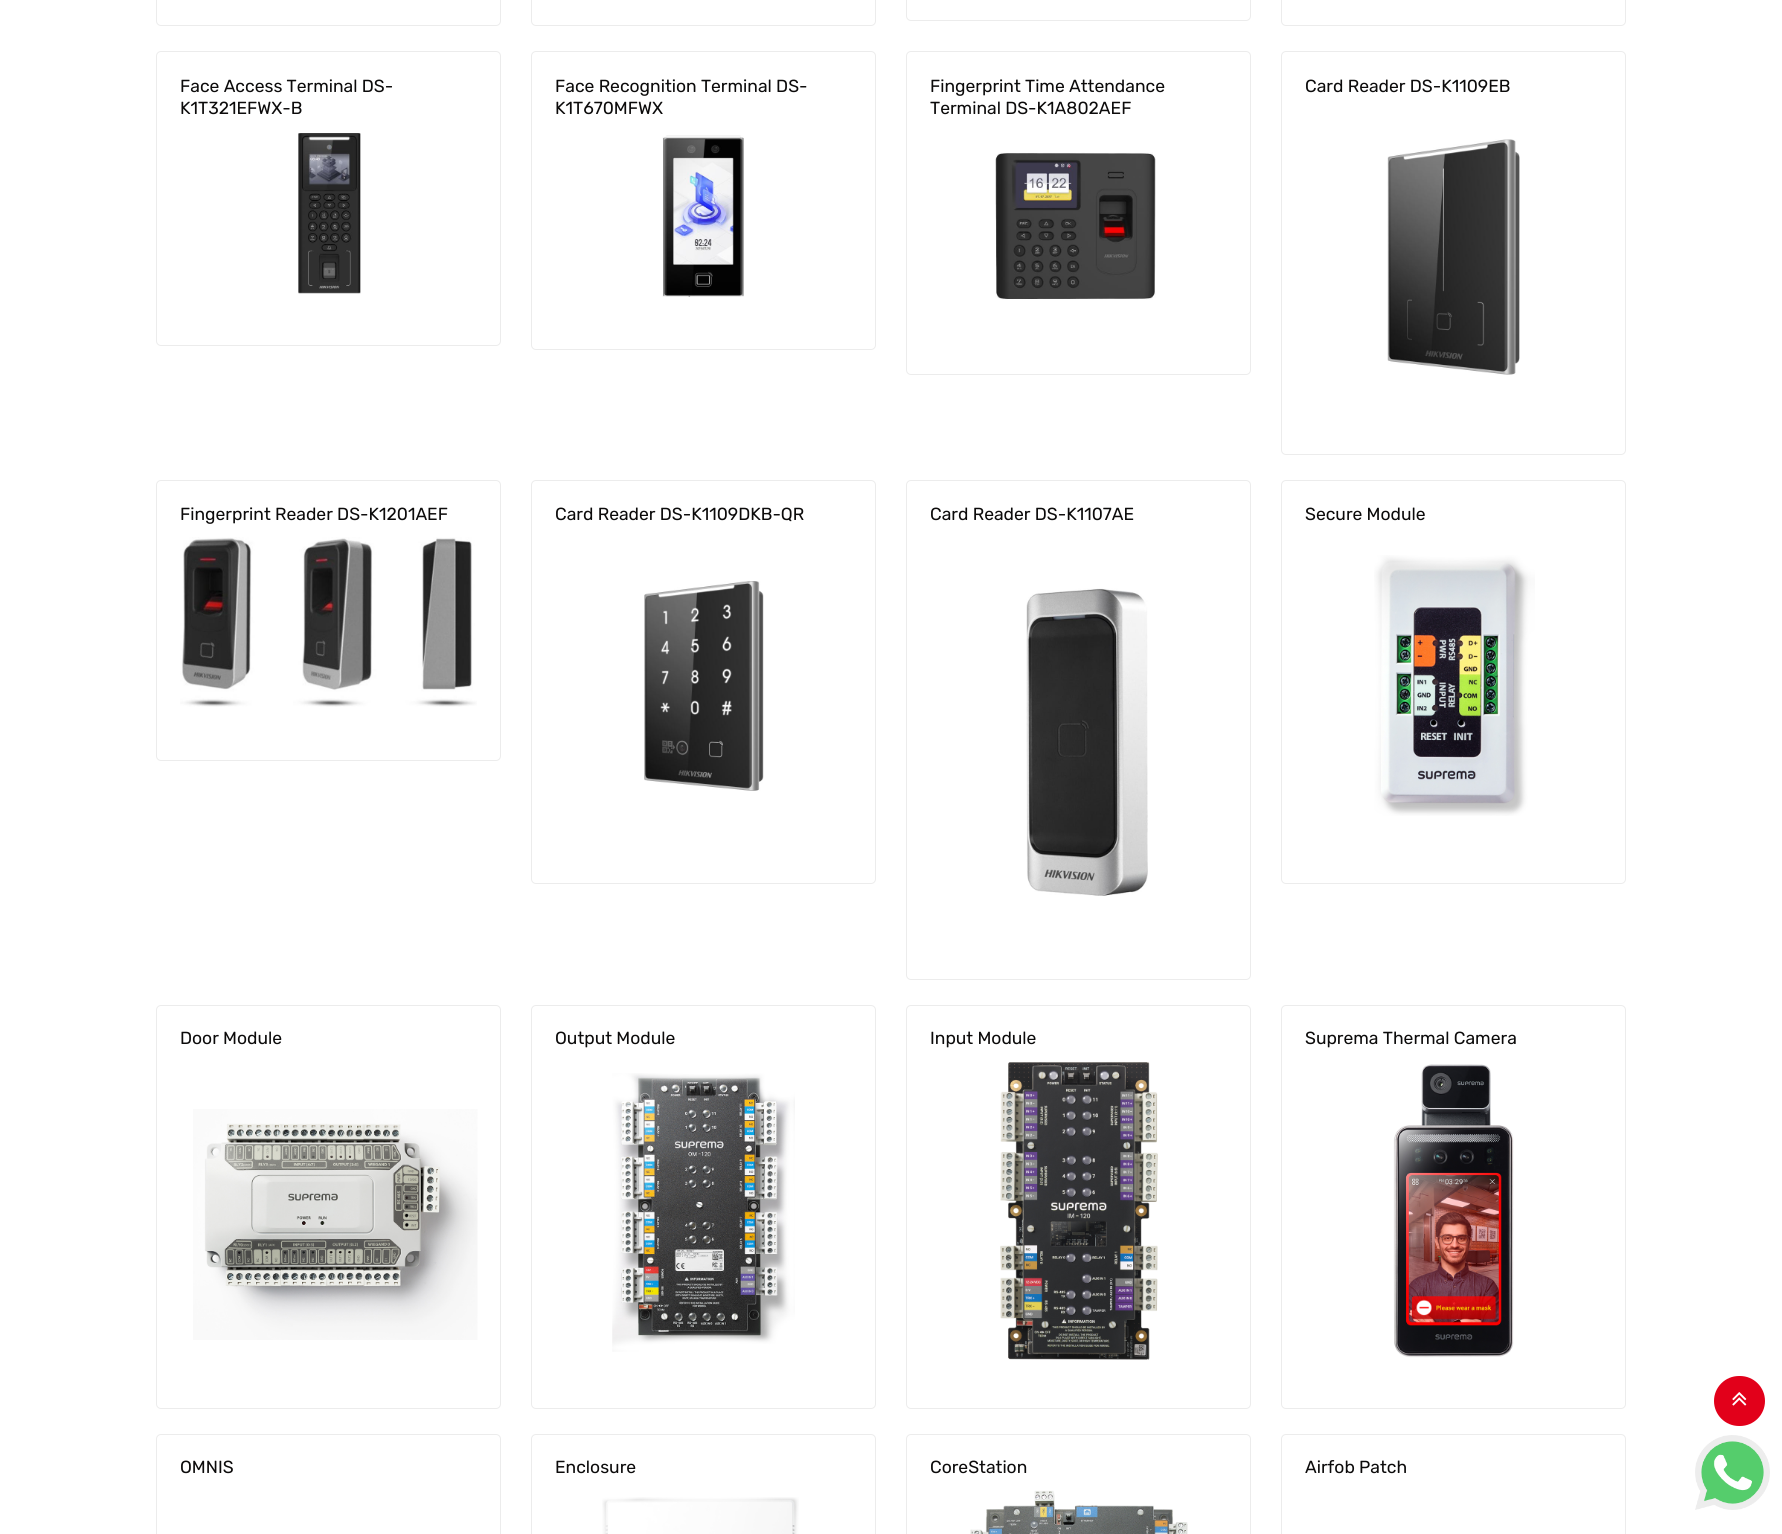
import math
import cairo


def round_path(ctx, x, y, w, h, r):
	ctx.new_sub_path()
	for i, (u, v) in enumerate([(x + w - r, y + h - r), (x + r, y + h - r), (x + r, y + r), (x + w - r, y + r)]):
		ctx.arc(u, v, r, i * math.pi / 2, (i + 1) * math.pi / 2)
	ctx.close_path()

def paste(ctx, path, x, y, w, h):
	ctx.save()
	ctx.set_source_surface(cairo.ImageSurface.create_from_png(path), x, y)
	ctx.rectangle(x, y, w, h)
	ctx.fill()
	ctx.restore()

def draw(ctx):
	ctx.set_source_rgb(1, 1, 1)
	ctx.paint()
	round_path(ctx, 156.5, -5.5, 344, 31, 4.5)
	ctx.set_source_rgb(0.922, 0.922, 0.922)
	ctx.set_line_width(1)
	ctx.stroke()
	round_path(ctx, 531.5, -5.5, 344, 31, 4.5)
	ctx.stroke()
	round_path(ctx, 906.5, -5.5, 344, 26, 4.5)
	ctx.stroke()
	round_path(ctx, 1281.5, -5.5, 344, 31, 4.5)
	ctx.stroke()
	round_path(ctx, 156.5, 51.5, 344, 294, 4.5)
	ctx.stroke()
	ctx.select_font_face('Rubik')
	ctx.set_font_size(17.5)
	ctx.set_source_rgb(0.047, 0.043, 0.043)
	ctx.move_to(180, 92)
	ctx.show_text('Face Access Terminal DS-')
	ctx.move_to(180, 114)
	ctx.show_text('K1T321EFWX-B')
	paste(ctx, 'media/1.png', 298, 133, 63, 161)
	round_path(ctx, 531.5, 51.5, 344, 298, 4.5)
	ctx.set_source_rgb(0.922, 0.922, 0.922)
	ctx.stroke()
	ctx.set_source_rgb(0.047, 0.043, 0.043)
	ctx.move_to(555, 92)
	ctx.show_text('Face Recognition Terminal DS-')
	ctx.move_to(555, 114)
	ctx.show_text('K1T670MFWX')
	paste(ctx, 'media/2.png', 662, 135, 82, 162)
	round_path(ctx, 906.5, 51.5, 344, 323, 4.5)
	ctx.set_source_rgb(0.922, 0.922, 0.922)
	ctx.stroke()
	ctx.set_source_rgb(0.047, 0.043, 0.043)
	ctx.move_to(930, 92)
	ctx.show_text('Fingerprint Time Attendance')
	ctx.move_to(930, 114)
	ctx.show_text('Terminal DS-K1A802AEF')
	paste(ctx, 'media/3.png', 995, 152, 161, 148)
	round_path(ctx, 1281.5, 51.5, 344, 403, 4.5)
	ctx.set_source_rgb(0.922, 0.922, 0.922)
	ctx.stroke()
	ctx.set_source_rgb(0.047, 0.043, 0.043)
	ctx.move_to(1305, 92)
	ctx.show_text('Card Reader DS-K1109EB')
	paste(ctx, 'media/4.png', 1387, 139, 133, 236)
	round_path(ctx, 156.5, 480.5, 344, 280, 4.5)
	ctx.set_source_rgb(0.922, 0.922, 0.922)
	ctx.stroke()
	ctx.set_source_rgb(0.047, 0.043, 0.043)
	ctx.move_to(180, 520)
	ctx.show_text('Fingerprint Reader DS-K1201AEF')
	paste(ctx, 'media/5.png', 180, 537, 297, 170)
	round_path(ctx, 531.5, 480.5, 344, 403, 4.5)
	ctx.set_source_rgb(0.922, 0.922, 0.922)
	ctx.stroke()
	ctx.set_source_rgb(0.047, 0.043, 0.043)
	ctx.move_to(555, 520)
	ctx.show_text('Card Reader DS-K1109DKB-QR')
	paste(ctx, 'media/6.png', 644, 581, 120, 210)
	round_path(ctx, 906.5, 480.5, 344, 499, 4.5)
	ctx.set_source_rgb(0.922, 0.922, 0.922)
	ctx.stroke()
	ctx.set_source_rgb(0.047, 0.043, 0.043)
	ctx.move_to(930, 520)
	ctx.show_text('Card Reader DS-K1107AE')
	paste(ctx, 'media/7.png', 1026, 588, 122, 308)
	round_path(ctx, 1281.5, 480.5, 344, 403, 4.5)
	ctx.set_source_rgb(0.922, 0.922, 0.922)
	ctx.stroke()
	ctx.set_source_rgb(0.047, 0.043, 0.043)
	ctx.move_to(1305, 520)
	ctx.show_text('Secure Module')
	paste(ctx, 'media/8.png', 1374, 555, 161, 261)
	round_path(ctx, 156.5, 1005.5, 344, 403, 4.5)
	ctx.set_source_rgb(0.922, 0.922, 0.922)
	ctx.stroke()
	ctx.set_source_rgb(0.047, 0.043, 0.043)
	ctx.move_to(180, 1044)
	ctx.show_text('Door Module')
	paste(ctx, 'media/9.png', 193, 1109, 285, 231)
	round_path(ctx, 531.5, 1005.5, 344, 403, 4.5)
	ctx.set_source_rgb(0.922, 0.922, 0.922)
	ctx.stroke()
	ctx.set_source_rgb(0.047, 0.043, 0.043)
	ctx.move_to(555, 1044)
	ctx.show_text('Output Module')
	paste(ctx, 'media/10.png', 612, 1073, 183, 279)
	round_path(ctx, 906.5, 1005.5, 344, 403, 4.5)
	ctx.set_source_rgb(0.922, 0.922, 0.922)
	ctx.stroke()
	ctx.set_source_rgb(0.047, 0.043, 0.043)
	ctx.move_to(930, 1044)
	ctx.show_text('Input Module')
	paste(ctx, 'media/11.png', 1000, 1062, 158, 298)
	round_path(ctx, 1281.5, 1005.5, 344, 403, 4.5)
	ctx.set_source_rgb(0.922, 0.922, 0.922)
	ctx.stroke()
	ctx.set_source_rgb(0.047, 0.043, 0.043)
	ctx.move_to(1305, 1044)
	ctx.show_text('Suprema Thermal Camera')
	paste(ctx, 'media/12.png', 1393, 1064, 121, 294)
	round_path(ctx, 156.5, 1434.5, 344, 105, 4.5)
	ctx.set_source_rgb(0.922, 0.922, 0.922)
	ctx.stroke()
	ctx.set_source_rgb(0.047, 0.043, 0.043)
	ctx.move_to(180, 1473)
	ctx.show_text('OMNIS')
	round_path(ctx, 531.5, 1434.5, 344, 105, 4.5)
	ctx.set_source_rgb(0.922, 0.922, 0.922)
	ctx.stroke()
	ctx.set_source_rgb(0.047, 0.043, 0.043)
	ctx.move_to(555, 1473)
	ctx.show_text('Enclosure')
	paste(ctx, 'media/13.png', 602, 1497, 197, 37)
	round_path(ctx, 906.5, 1434.5, 344, 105, 4.5)
	ctx.set_source_rgb(0.922, 0.922, 0.922)
	ctx.stroke()
	ctx.set_source_rgb(0.047, 0.043, 0.043)
	ctx.move_to(930, 1473)
	ctx.show_text('CoreStation')
	paste(ctx, 'media/14.png', 970, 1490, 218, 44)
	round_path(ctx, 1281.5, 1434.5, 344, 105, 4.5)
	ctx.set_source_rgb(0.922, 0.922, 0.922)
	ctx.stroke()
	ctx.set_source_rgb(0.047, 0.043, 0.043)
	ctx.move_to(1305, 1473)
	ctx.show_text('Airfob Patch')
	ctx.set_source_rgb(0.886, 0, 0.102)
	round_path(ctx, 1712.5, 1374.5, 54, 53, 26.5)
	ctx.fill_preserve()
	ctx.set_source_rgb(1, 1, 1)
	ctx.set_line_width(3)
	ctx.stroke()
	paste(ctx, 'media/15.png', 1732, 1392, 15, 14)
	paste(ctx, 'media/16.png', 1695, 1435, 75, 75)


surface = cairo.ImageSurface(cairo.FORMAT_RGB24, 1782, 1534)
ctx = cairo.Context(surface)
options = cairo.FontOptions()
options.set_hint_metrics(cairo.HINT_METRICS_OFF)
options.set_hint_style(cairo.HINT_STYLE_NONE)
ctx.set_font_options(options)
ctx.set_miter_limit(4)
draw(ctx)
surface.write_to_png('image.png')
